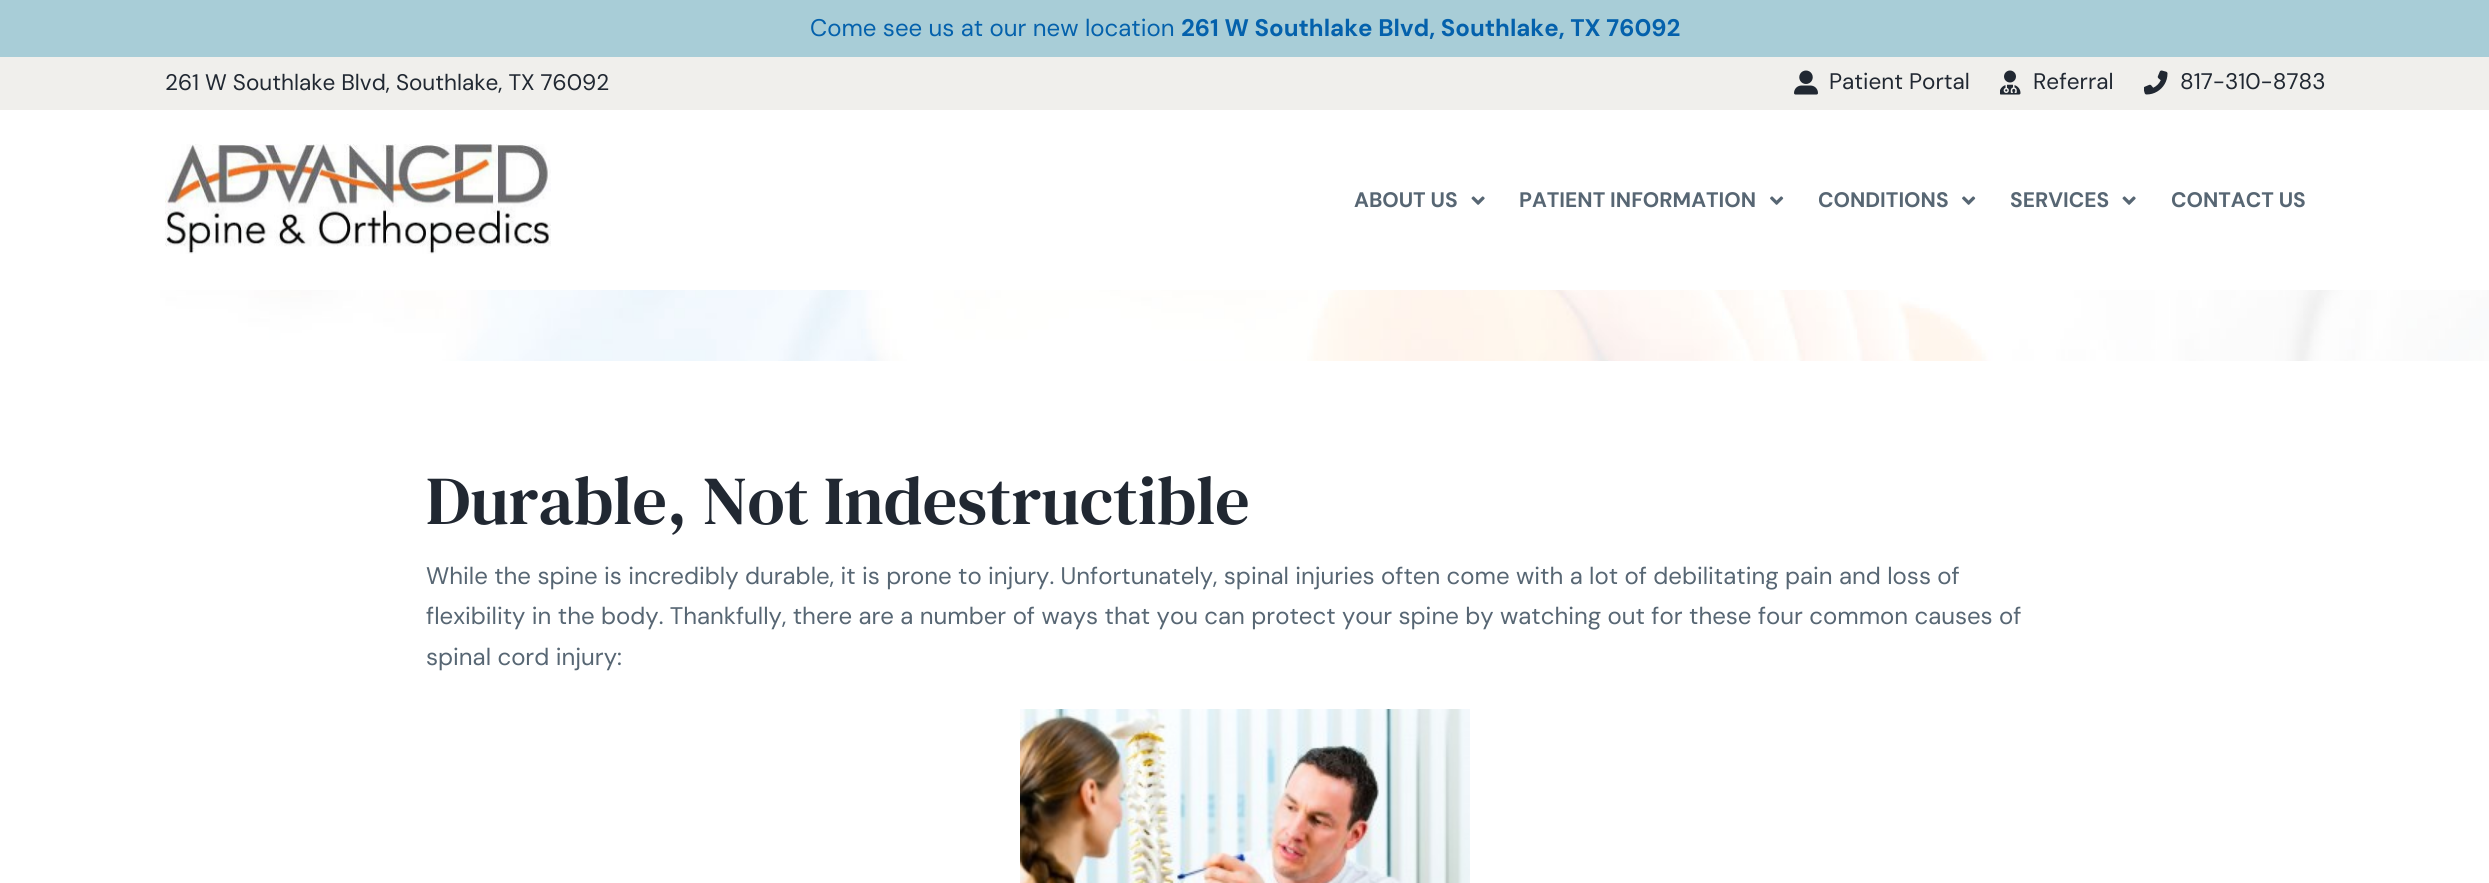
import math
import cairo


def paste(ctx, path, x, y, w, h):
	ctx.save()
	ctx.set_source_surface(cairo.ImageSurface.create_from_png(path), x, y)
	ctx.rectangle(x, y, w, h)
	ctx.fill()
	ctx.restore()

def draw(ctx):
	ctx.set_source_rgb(1, 1, 1)
	ctx.paint()
	ctx.set_source_rgb(0.659, 0.804, 0.843)
	ctx.rectangle(0, 0, 2489, 57)
	ctx.fill()
	ctx.select_font_face('DM Sans')
	ctx.set_font_size(24)
	ctx.set_source_rgb(0.016, 0.38, 0.675)
	ctx.move_to(810, 36)
	ctx.show_text('Come see us at our new location')
	ctx.select_font_face('DM Sans', cairo.FONT_SLANT_NORMAL, cairo.FONT_WEIGHT_BOLD)
	ctx.move_to(1181, 36)
	ctx.show_text('261 W Southlake Blvd, Southlake, TX 76092')
	ctx.set_source_rgb(0.941, 0.937, 0.922)
	ctx.rectangle(0, 57, 2489, 53)
	ctx.fill()
	ctx.select_font_face('DM Sans')
	ctx.set_font_size(22.5)
	ctx.set_source_rgb(0.129, 0.157, 0.196)
	ctx.move_to(165, 90)
	ctx.show_text('261 W Southlake Blvd, Southlake, TX 76092')
	paste(ctx, 'media/1.png', 1794, 70, 24, 25)
	ctx.move_to(1829, 89)
	ctx.show_text('Patient Portal')
	paste(ctx, 'media/2.png', 2000, 70, 21, 25)
	ctx.move_to(2033, 89)
	ctx.show_text('Referral')
	paste(ctx, 'media/3.png', 2144, 70, 24, 25)
	ctx.move_to(2180, 89)
	ctx.show_text('817-310-8783')
	paste(ctx, 'media/4.png', 165, 144, 386, 110)
	ctx.select_font_face('DM Sans', cairo.FONT_SLANT_NORMAL, cairo.FONT_WEIGHT_BOLD)
	ctx.set_font_size(21)
	ctx.set_source_rgb(0.341, 0.4, 0.451)
	ctx.move_to(1354, 207)
	ctx.show_text('ABOUT US')
	paste(ctx, 'media/5.png', 1471, 196, 14, 9)
	ctx.move_to(1519, 207)
	ctx.show_text('PATIENT INFORMATION')
	paste(ctx, 'media/6.png', 1770, 196, 14, 9)
	ctx.move_to(1818, 207)
	ctx.show_text('CONDITIONS')
	paste(ctx, 'media/6.png', 1962, 196, 14, 9)
	ctx.move_to(2010, 207)
	ctx.show_text('SERVICES')
	paste(ctx, 'media/5.png', 2122, 196, 14, 9)
	ctx.move_to(2171, 207)
	ctx.show_text('CONTACT US')
	paste(ctx, 'media/7.png', 160, 290, 2329, 71)
	ctx.select_font_face('DM Serif Text')
	ctx.set_font_size(68.5)
	ctx.set_source_rgb(0.129, 0.157, 0.196)
	ctx.move_to(426, 524)
	ctx.show_text('Durable, Not Indestructible')
	ctx.select_font_face('DM Sans')
	ctx.set_font_size(24)
	ctx.set_source_rgb(0.341, 0.4, 0.451)
	for x, y, s in [
		(426, 584, 'While the spine is incredibly durable, it is prone to injury. Unfortunately, spinal injuries often come with a lot of debilitating pain and loss of'),
		(426, 624, 'flexibility in the body. Thankfully, there are a number of ways that you can protect your spine by watching out for these four common causes of'),
		(426, 665, 'spinal cord injury:'),
	]:
		ctx.move_to(x, y)
		ctx.show_text(s)
	paste(ctx, 'media/8.png', 1020, 709, 450, 174)


surface = cairo.ImageSurface(cairo.FORMAT_RGB24, 2489, 883)
ctx = cairo.Context(surface)
options = cairo.FontOptions()
options.set_hint_metrics(cairo.HINT_METRICS_OFF)
options.set_hint_style(cairo.HINT_STYLE_NONE)
ctx.set_font_options(options)
ctx.set_miter_limit(4)
draw(ctx)
surface.write_to_png('image.png')
